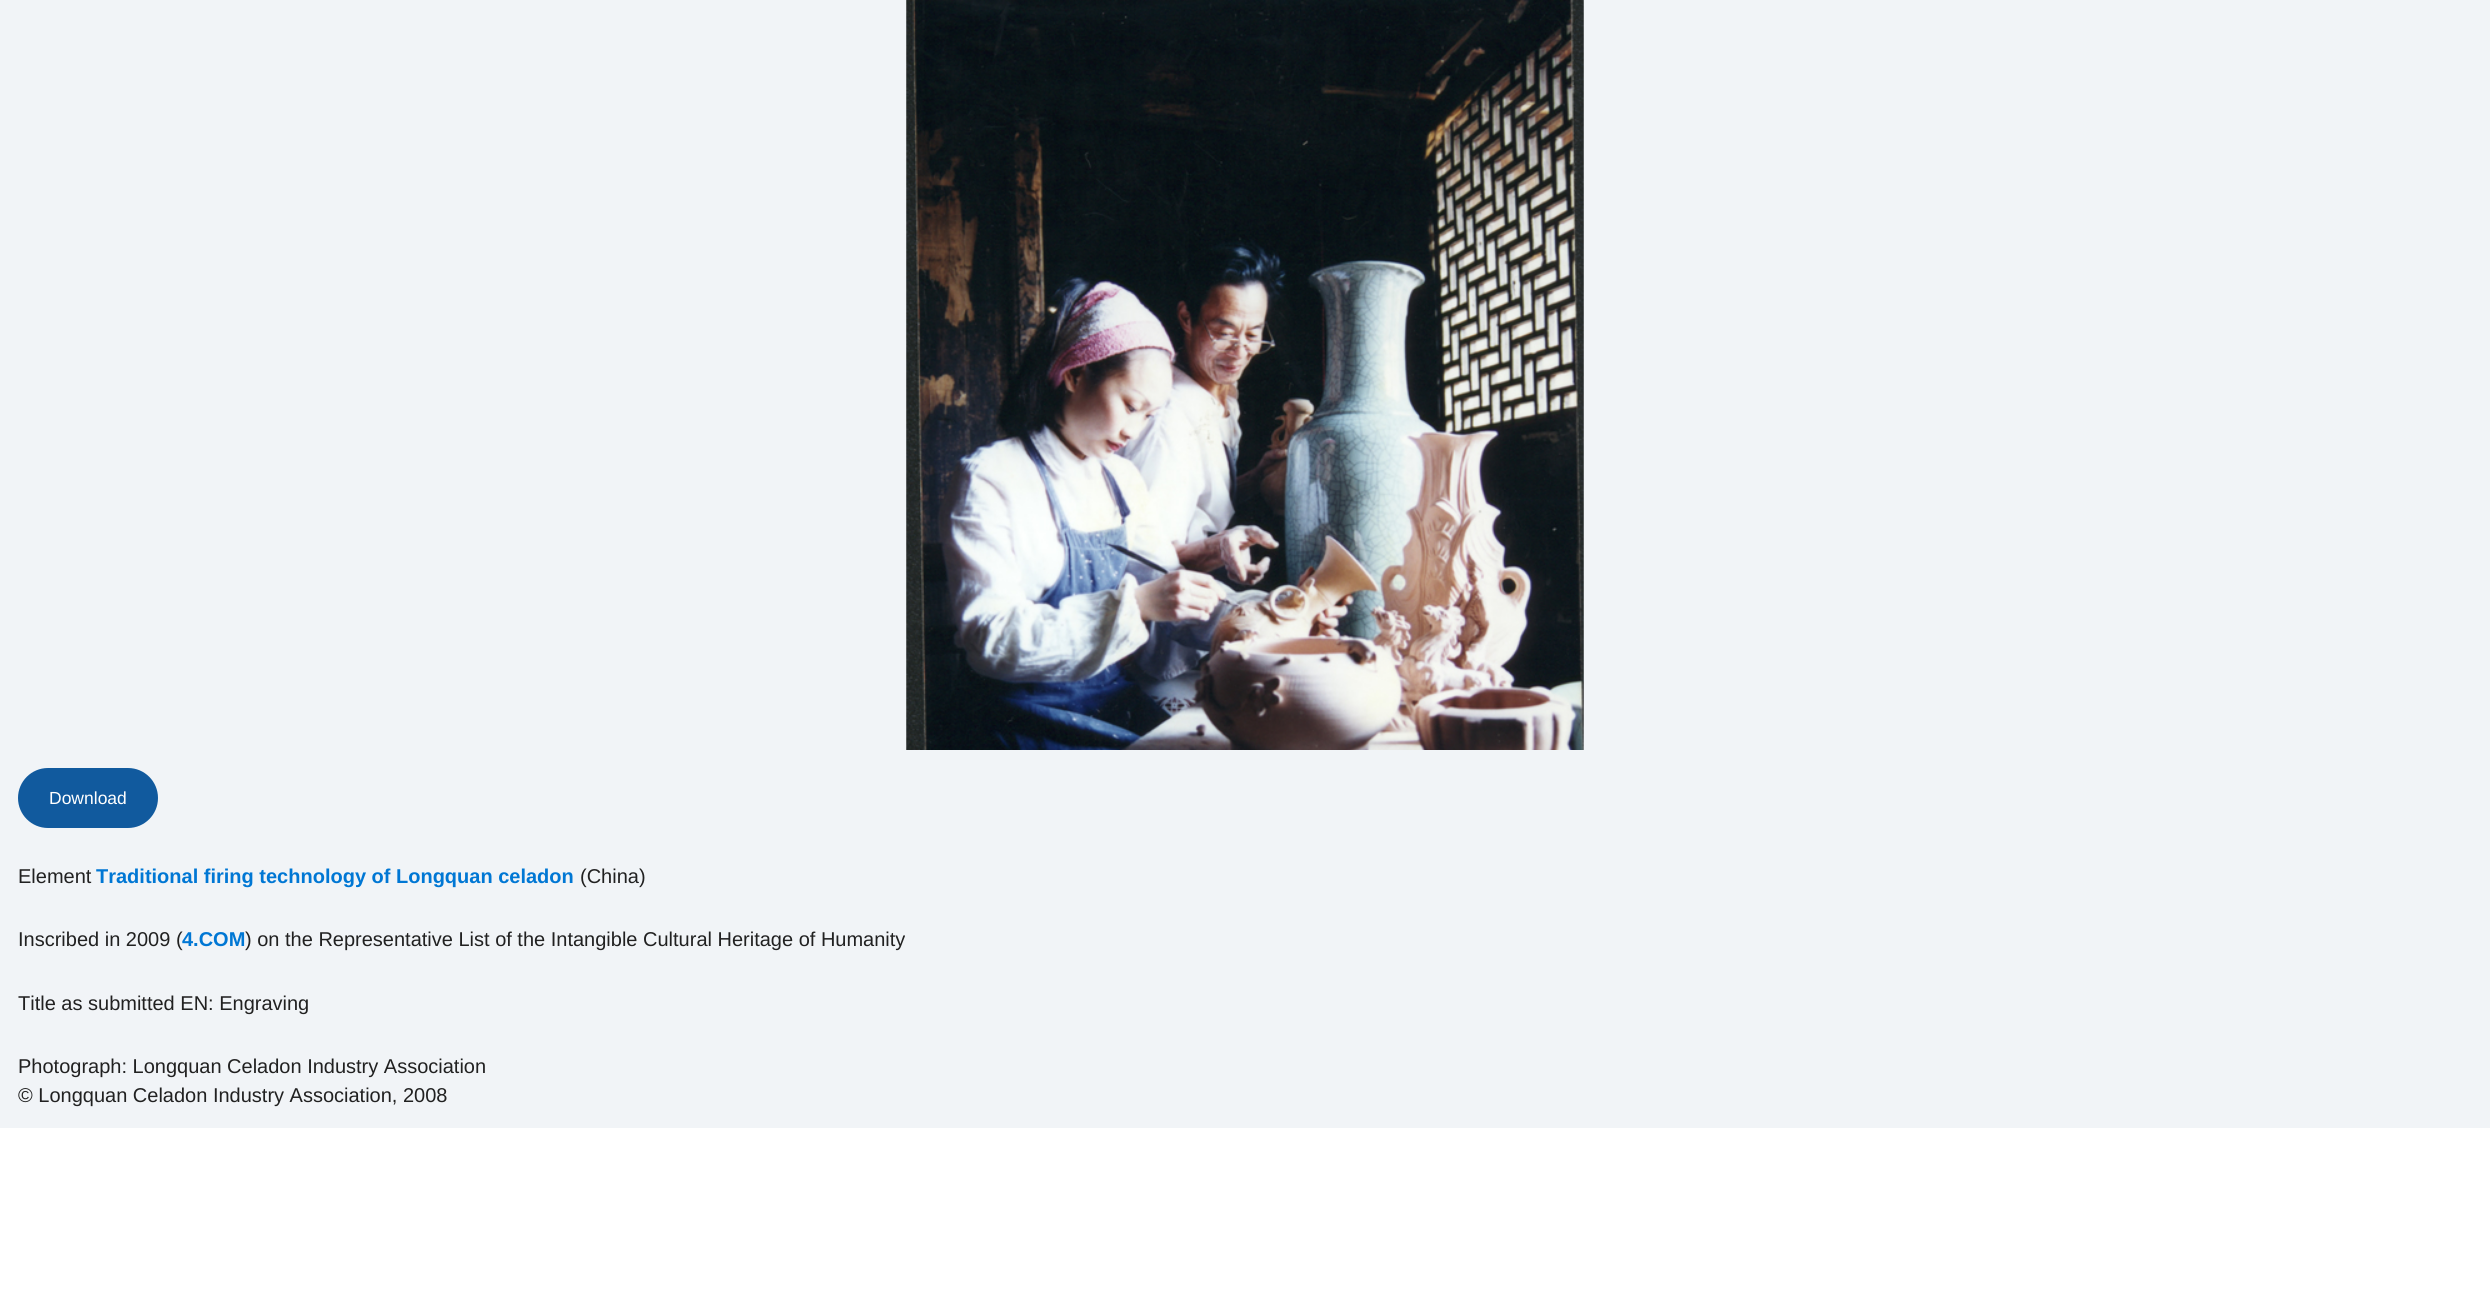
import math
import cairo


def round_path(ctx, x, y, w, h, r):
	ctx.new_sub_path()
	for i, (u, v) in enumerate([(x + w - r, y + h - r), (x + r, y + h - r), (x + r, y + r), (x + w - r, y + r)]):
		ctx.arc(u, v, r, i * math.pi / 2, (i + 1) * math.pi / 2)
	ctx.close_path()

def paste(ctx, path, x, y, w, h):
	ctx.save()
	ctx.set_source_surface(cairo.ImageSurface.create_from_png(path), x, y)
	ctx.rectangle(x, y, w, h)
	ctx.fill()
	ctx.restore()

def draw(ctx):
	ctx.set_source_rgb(1, 1, 1)
	ctx.paint()
	ctx.set_source_rgb(0.945, 0.957, 0.965)
	ctx.rectangle(0, 0, 2490, 1128)
	ctx.fill()
	paste(ctx, 'media/1.png', 906, 0, 678, 750)
	ctx.set_source_rgb(0.067, 0.353, 0.62)
	round_path(ctx, 18, 768, 140, 60, 30)
	ctx.fill()
	ctx.select_font_face('Liberation Sans')
	ctx.set_font_size(17.5)
	ctx.set_source_rgb(1, 1, 1)
	ctx.move_to(49, 804)
	ctx.show_text('Download')
	ctx.set_font_size(20)
	ctx.set_source_rgb(0.129, 0.129, 0.129)
	ctx.move_to(18, 883)
	ctx.show_text('Element')
	ctx.select_font_face('Liberation Sans', cairo.FONT_SLANT_NORMAL, cairo.FONT_WEIGHT_BOLD)
	ctx.set_source_rgb(0, 0.467, 0.831)
	ctx.move_to(96, 883)
	ctx.show_text('Traditional firing technology of Longquan celadon')
	ctx.select_font_face('Liberation Sans')
	ctx.set_source_rgb(0.129, 0.129, 0.129)
	ctx.move_to(580, 883)
	ctx.show_text('(China)')
	ctx.move_to(18, 946)
	ctx.show_text('Inscribed in 2009 (')
	ctx.select_font_face('Liberation Sans', cairo.FONT_SLANT_NORMAL, cairo.FONT_WEIGHT_BOLD)
	ctx.set_source_rgb(0, 0.467, 0.831)
	ctx.move_to(182, 946)
	ctx.show_text('4.COM')
	ctx.select_font_face('Liberation Sans')
	ctx.set_source_rgb(0.129, 0.129, 0.129)
	for x, y, s in [
		(245, 946, ') on the Representative List of the Intangible Cultural Heritage of Humanity'),
		(18, 1010, 'Title as submitted EN: Engraving'),
		(18, 1073, 'Photograph: Longquan Celadon Industry Association'),
		(18, 1102, '© Longquan Celadon Industry Association, 2008'),
	]:
		ctx.move_to(x, y)
		ctx.show_text(s)


surface = cairo.ImageSurface(cairo.FORMAT_RGB24, 2490, 1312)
ctx = cairo.Context(surface)
options = cairo.FontOptions()
options.set_hint_metrics(cairo.HINT_METRICS_OFF)
options.set_hint_style(cairo.HINT_STYLE_NONE)
ctx.set_font_options(options)
ctx.set_miter_limit(4)
draw(ctx)
surface.write_to_png('image.png')
